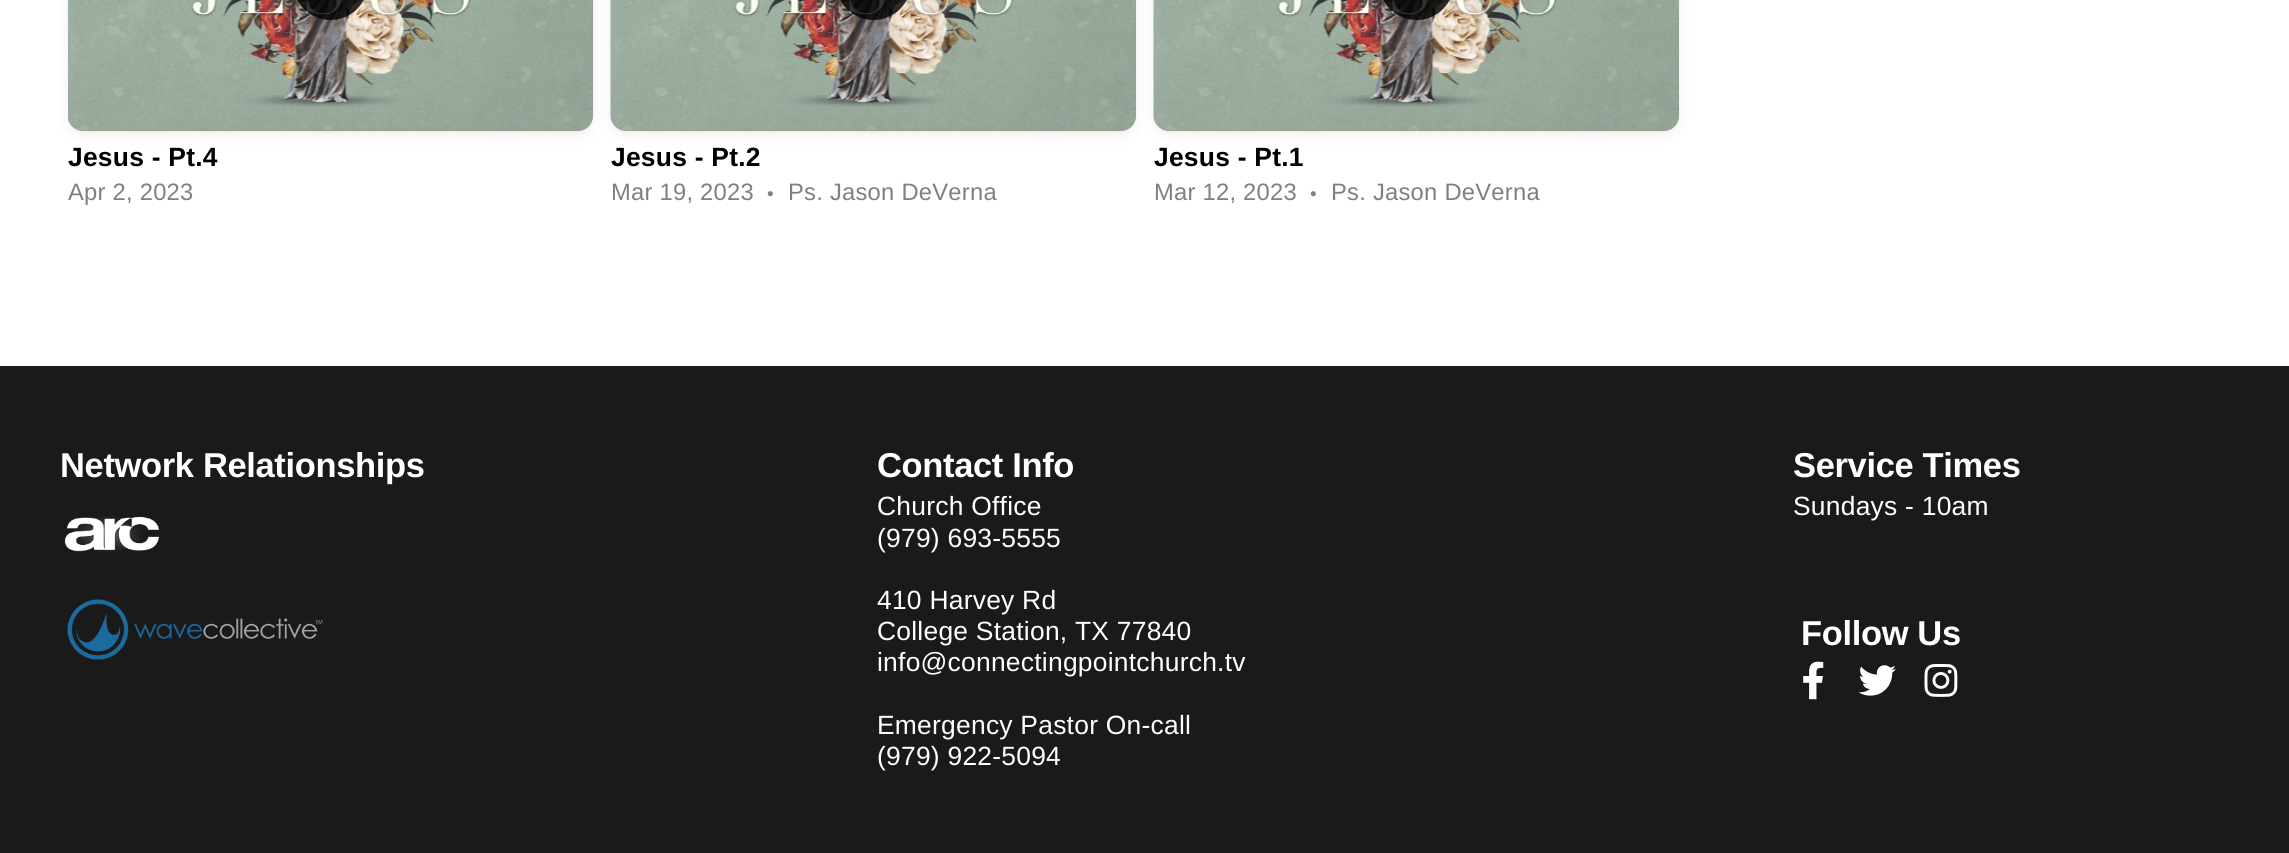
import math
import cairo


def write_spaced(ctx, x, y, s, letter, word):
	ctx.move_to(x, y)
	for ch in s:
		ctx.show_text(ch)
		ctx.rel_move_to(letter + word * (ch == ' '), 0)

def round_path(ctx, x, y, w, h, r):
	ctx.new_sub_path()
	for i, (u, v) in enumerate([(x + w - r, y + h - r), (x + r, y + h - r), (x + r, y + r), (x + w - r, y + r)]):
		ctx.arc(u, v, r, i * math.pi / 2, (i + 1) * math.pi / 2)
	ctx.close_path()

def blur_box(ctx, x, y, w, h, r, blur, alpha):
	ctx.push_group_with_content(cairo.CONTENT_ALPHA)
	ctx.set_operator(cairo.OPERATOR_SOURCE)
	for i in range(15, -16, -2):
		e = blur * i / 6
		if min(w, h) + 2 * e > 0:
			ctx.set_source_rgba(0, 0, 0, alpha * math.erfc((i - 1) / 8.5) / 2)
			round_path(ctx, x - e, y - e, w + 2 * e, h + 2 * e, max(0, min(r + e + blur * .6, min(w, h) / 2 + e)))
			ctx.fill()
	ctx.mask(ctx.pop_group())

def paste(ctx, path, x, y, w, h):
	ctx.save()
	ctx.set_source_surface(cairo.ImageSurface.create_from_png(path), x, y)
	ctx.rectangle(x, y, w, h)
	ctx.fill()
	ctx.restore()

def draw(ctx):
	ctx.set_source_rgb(1, 1, 1)
	ctx.paint()
	ctx.set_source_rgb(0, 0, 0)
	blur_box(ctx, 68, -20, 525, 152, 15, 1.5, 0.04)
	blur_box(ctx, 68, -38, 525, 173, 15, 7.5, 0.06)
	ctx.set_source_rgb(0.608, 0.624, 0.569)
	round_path(ctx, 68, -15, 525, 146, 15)
	ctx.fill()
	paste(ctx, 'media/1.png', 68, 0, 525, 130)
	ctx.set_source_rgba(0, 0, 0, 0.8)
	round_path(ctx, 293, -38, 75, 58, 37.5)
	ctx.fill()
	ctx.select_font_face('Liberation Sans', cairo.FONT_SLANT_NORMAL, cairo.FONT_WEIGHT_BOLD)
	ctx.set_font_size(26.4)
	ctx.set_source_rgb(0, 0, 0)
	write_spaced(ctx, 68, 166, 'Jesus - Pt.4', 0.25, 0)
	ctx.select_font_face('Liberation Sans')
	ctx.set_font_size(23.75)
	ctx.set_source_rgb(0.502, 0.502, 0.502)
	write_spaced(ctx, 68, 200, 'Apr 2, 2023', 0.25, 0)
	ctx.set_source_rgb(0, 0, 0)
	blur_box(ctx, 611, -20, 525, 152, 15, 1.5, 0.04)
	blur_box(ctx, 611, -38, 525, 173, 15, 7.5, 0.06)
	ctx.set_source_rgb(0.608, 0.624, 0.569)
	round_path(ctx, 611, -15, 525, 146, 15)
	ctx.fill()
	paste(ctx, 'media/2.png', 610, 0, 526, 130)
	ctx.set_source_rgba(0, 0, 0, 0.8)
	round_path(ctx, 836, -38, 75, 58, 37.5)
	ctx.fill()
	ctx.select_font_face('Liberation Sans', cairo.FONT_SLANT_NORMAL, cairo.FONT_WEIGHT_BOLD)
	ctx.set_font_size(26.4)
	ctx.set_source_rgb(0, 0, 0)
	write_spaced(ctx, 611, 166, 'Jesus - Pt.2', 0.25, 0)
	ctx.select_font_face('Liberation Sans')
	ctx.set_font_size(23.75)
	ctx.set_source_rgb(0.502, 0.502, 0.502)
	write_spaced(ctx, 611, 200, 'Mar 19, 2023', 0.25, 0)
	ctx.set_font_size(19)
	write_spaced(ctx, 767, 200, '•', 0.25, 0)
	ctx.set_font_size(23.75)
	write_spaced(ctx, 788, 200, 'Ps. Jason DeVerna', 0.25, 0)
	ctx.set_source_rgb(0, 0, 0)
	blur_box(ctx, 1154, -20, 525, 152, 15, 1.5, 0.04)
	blur_box(ctx, 1154, -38, 525, 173, 15, 7.5, 0.06)
	ctx.set_source_rgb(0.608, 0.624, 0.569)
	round_path(ctx, 1154, -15, 525, 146, 15)
	ctx.fill()
	paste(ctx, 'media/3.png', 1153, 0, 526, 130)
	ctx.set_source_rgba(0, 0, 0, 0.8)
	round_path(ctx, 1379, -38, 75, 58, 37.5)
	ctx.fill()
	ctx.select_font_face('Liberation Sans', cairo.FONT_SLANT_NORMAL, cairo.FONT_WEIGHT_BOLD)
	ctx.set_font_size(26.4)
	ctx.set_source_rgb(0, 0, 0)
	write_spaced(ctx, 1154, 166, 'Jesus - Pt.1', 0.25, 0)
	ctx.select_font_face('Liberation Sans')
	ctx.set_font_size(23.75)
	ctx.set_source_rgb(0.502, 0.502, 0.502)
	write_spaced(ctx, 1154, 200, 'Mar 12, 2023', 0.25, 0)
	ctx.set_font_size(19)
	write_spaced(ctx, 1310, 200, '•', 0.25, 0)
	ctx.set_font_size(23.75)
	write_spaced(ctx, 1331, 200, 'Ps. Jason DeVerna', 0.25, 0)
	ctx.set_source_rgb(0.102, 0.102, 0.102)
	ctx.rectangle(0, 366, 2289, 487)
	ctx.fill()
	ctx.select_font_face('Liberation Sans', cairo.FONT_SLANT_NORMAL, cairo.FONT_WEIGHT_BOLD)
	ctx.set_font_size(34.5)
	ctx.set_source_rgb(1, 1, 1)
	write_spaced(ctx, 60, 477, 'Network Relationships', -0.35, 0)
	paste(ctx, 'media/4.png', 64, 516, 95, 36)
	paste(ctx, 'media/5.png', 67, 599, 256, 61)
	write_spaced(ctx, 877, 477, 'Contact Info', -0.35, 0)
	ctx.select_font_face('Liberation Sans')
	ctx.set_font_size(26.4)
	for x, y, s in [
		(877, 515, 'Church Office'),
		(877, 547, '(979) 693-5555'),
		(877, 609, '410 Harvey Rd'),
		(877, 640, 'College Station, TX 77840'),
		(877, 671, 'info@connectingpointchurch.tv'),
		(877, 734, 'Emergency Pastor On-call'),
		(877, 765, '(979) 922-5094'),
	]:
		write_spaced(ctx, x, y, s, 0.25, 0)
	ctx.select_font_face('Liberation Sans', cairo.FONT_SLANT_NORMAL, cairo.FONT_WEIGHT_BOLD)
	ctx.set_font_size(34.5)
	write_spaced(ctx, 1793, 477, 'Service Times', -0.35, 0)
	ctx.select_font_face('Liberation Sans')
	ctx.set_font_size(26.4)
	write_spaced(ctx, 1793, 515, 'Sundays - 10am', 0.25, 0)
	ctx.select_font_face('Liberation Sans', cairo.FONT_SLANT_NORMAL, cairo.FONT_WEIGHT_BOLD)
	ctx.set_font_size(34.5)
	write_spaced(ctx, 1801, 645, 'Follow Us', -0.35, 0)
	paste(ctx, 'media/6.png', 1803, 661, 21, 39)
	paste(ctx, 'media/7.png', 1858, 665, 38, 31)
	paste(ctx, 'media/8.png', 1924, 664, 34, 33)


surface = cairo.ImageSurface(cairo.FORMAT_RGB24, 2289, 853)
ctx = cairo.Context(surface)
options = cairo.FontOptions()
options.set_hint_metrics(cairo.HINT_METRICS_OFF)
options.set_hint_style(cairo.HINT_STYLE_NONE)
ctx.set_font_options(options)
ctx.set_miter_limit(4)
draw(ctx)
surface.write_to_png('image.png')
